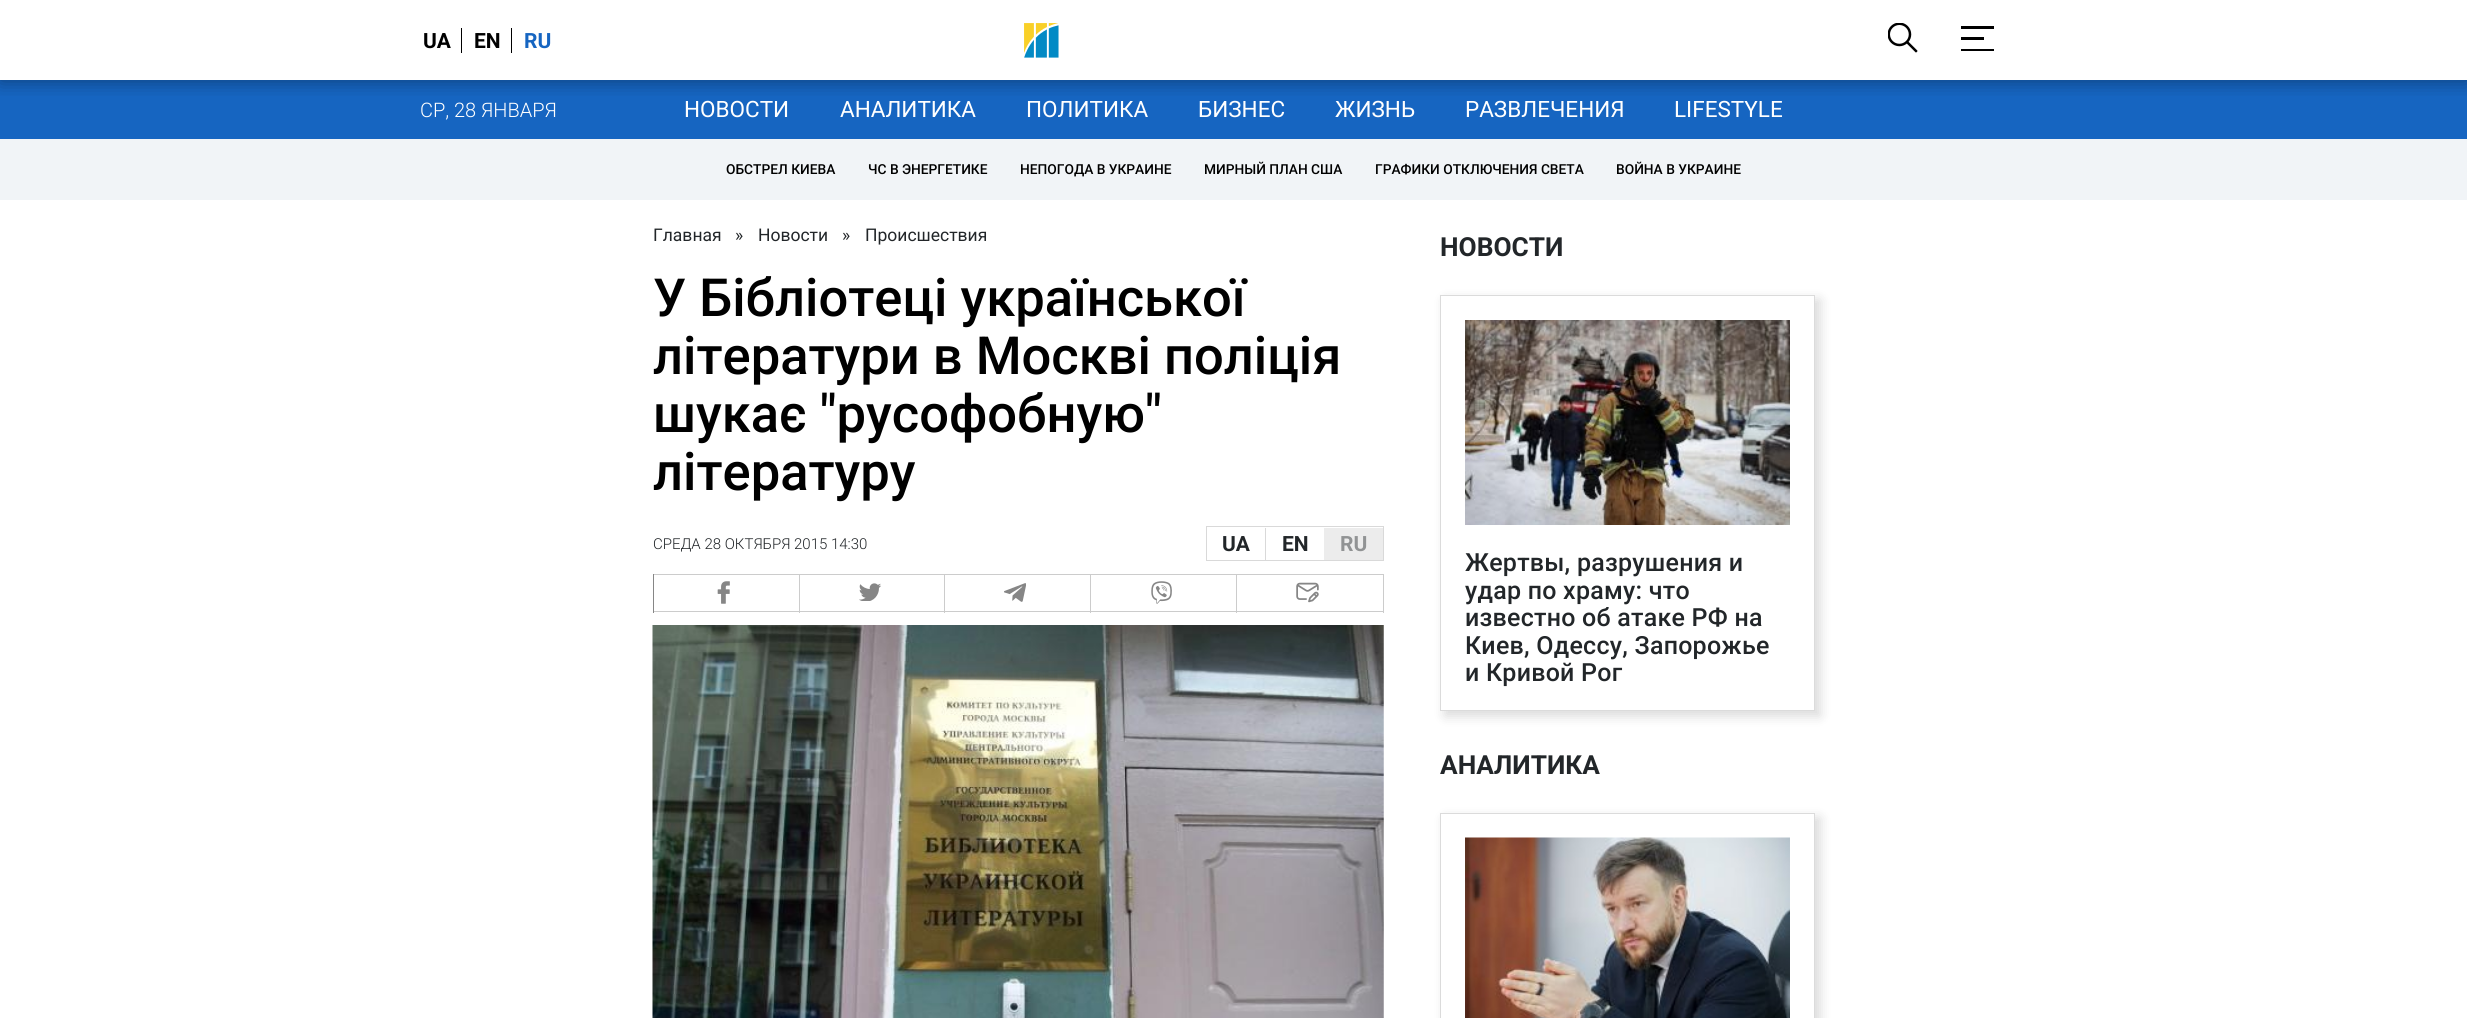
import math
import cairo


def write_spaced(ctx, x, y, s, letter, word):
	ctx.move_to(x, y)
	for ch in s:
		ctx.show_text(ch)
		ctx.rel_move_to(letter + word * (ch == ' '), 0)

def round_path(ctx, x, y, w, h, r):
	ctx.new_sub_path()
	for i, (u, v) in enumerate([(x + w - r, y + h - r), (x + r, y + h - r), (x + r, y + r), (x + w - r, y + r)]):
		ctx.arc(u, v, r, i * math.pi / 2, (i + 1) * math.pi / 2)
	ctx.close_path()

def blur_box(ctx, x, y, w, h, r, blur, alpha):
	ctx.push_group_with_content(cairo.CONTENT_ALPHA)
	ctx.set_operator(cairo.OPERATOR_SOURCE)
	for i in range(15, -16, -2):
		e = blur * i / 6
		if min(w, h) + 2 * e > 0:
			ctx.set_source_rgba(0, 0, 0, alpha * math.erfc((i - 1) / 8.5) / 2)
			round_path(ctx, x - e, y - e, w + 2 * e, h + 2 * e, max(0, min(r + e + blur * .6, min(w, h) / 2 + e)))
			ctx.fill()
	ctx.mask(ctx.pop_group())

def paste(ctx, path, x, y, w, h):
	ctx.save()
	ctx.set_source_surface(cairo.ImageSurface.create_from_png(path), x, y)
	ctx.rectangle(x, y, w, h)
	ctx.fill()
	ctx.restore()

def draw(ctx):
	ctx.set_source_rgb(1, 1, 1)
	ctx.paint()
	ctx.set_source_rgb(0.086, 0.396, 0.757)
	ctx.rectangle(0, 80, 2467, 59)
	ctx.fill()
	ctx.save()
	ctx.rectangle(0, 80, 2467, 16)
	ctx.clip()
	ctx.set_source_rgb(0, 0, 0)
	blur_box(ctx, 0, 1, 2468, 80, 0, 9.5, 0.38)
	ctx.restore()
	ctx.select_font_face('Roboto', cairo.FONT_SLANT_NORMAL, cairo.FONT_WEIGHT_BOLD)
	ctx.set_font_size(21)
	ctx.set_source_rgb(0, 0, 0)
	ctx.move_to(423, 48)
	ctx.show_text('UA')
	ctx.rectangle(461, 28, 1, 25)
	ctx.fill()
	ctx.move_to(474, 48)
	ctx.show_text('EN')
	ctx.rectangle(511, 28, 1, 25)
	ctx.fill()
	ctx.set_source_rgb(0.086, 0.396, 0.757)
	ctx.move_to(524, 48)
	ctx.show_text('RU')
	paste(ctx, 'media/1.png', 1024, 23, 35, 35)
	paste(ctx, 'media/2.png', 1888, 23, 30, 30)
	ctx.set_source_rgb(0, 0, 0)
	ctx.rectangle(1961, 26, 33, 3)
	ctx.rectangle(1961, 37, 23, 3)
	ctx.rectangle(1961, 49, 33, 2)
	ctx.fill()
	ctx.select_font_face('Roboto Light')
	ctx.set_font_size(20)
	ctx.set_source_rgb(1, 1, 1)
	ctx.move_to(420, 117)
	ctx.show_text('СР, 28 ЯНВАРЯ')
	ctx.select_font_face('Roboto')
	ctx.set_font_size(22.5)
	for x, y, s in [
		(684, 117, 'НОВОСТИ'),
		(840, 117, 'АНАЛИТИКА'),
		(1026, 117, 'ПОЛИТИКА'),
		(1198, 117, 'БИЗНЕС'),
		(1335, 117, 'ЖИЗНЬ'),
		(1465, 117, 'РАЗВЛЕЧЕНИЯ'),
		(1674, 117, 'LIFESTYLE'),
	]:
		ctx.move_to(x, y)
		ctx.show_text(s)
	ctx.set_source_rgb(0.945, 0.957, 0.965)
	ctx.rectangle(0, 139, 2467, 61)
	ctx.fill()
	ctx.select_font_face('Roboto Medium')
	ctx.set_font_size(13.75)
	ctx.set_source_rgb(0, 0, 0)
	for x, y, s in [
		(726, 174, 'ОБСТРЕЛ КИЕВА'),
		(868, 174, 'ЧС В ЭНЕРГЕТИКЕ'),
		(1020, 174, 'НЕПОГОДА В УКРАИНЕ'),
		(1204, 174, 'МИРНЫЙ ПЛАН США'),
		(1375, 174, 'ГРАФИКИ ОТКЛЮЧЕНИЯ СВЕТА'),
		(1616, 174, 'ВОЙНА В УКРАИНЕ'),
	]:
		ctx.move_to(x, y)
		ctx.show_text(s)
	ctx.select_font_face('Roboto')
	ctx.set_font_size(17.5)
	ctx.set_source_rgb(0.133, 0.149, 0.161)
	for x, y, s in [
		(653, 241, 'Главная'),
		(735, 241, '»'),
		(758, 241, 'Новости'),
		(842, 241, '»'),
		(865, 241, 'Происшествия'),
	]:
		ctx.move_to(x, y)
		ctx.show_text(s)
	ctx.select_font_face('Roboto Medium')
	ctx.set_font_size(52.5)
	ctx.set_source_rgb(0, 0, 0)
	for x, y, s in [
		(653, 316, 'У Бібліотеці української'),
		(653, 374, 'літератури в Москві поліція'),
		(653, 432, 'шукає "русофобную"'),
		(653, 490, 'літературу'),
	]:
		ctx.move_to(x, y)
		ctx.show_text(s)
	ctx.select_font_face('Roboto Light')
	ctx.set_font_size(15)
	ctx.set_source_rgb(0.133, 0.149, 0.161)
	ctx.move_to(653, 549)
	ctx.show_text('СРЕДА 28 ОКТЯБРЯ 2015 14:30')
	ctx.rectangle(1206.5, 526.5, 177, 34)
	ctx.set_source_rgb(0.851, 0.851, 0.851)
	ctx.set_line_width(1)
	ctx.stroke()
	ctx.select_font_face('Roboto', cairo.FONT_SLANT_NORMAL, cairo.FONT_WEIGHT_BOLD)
	ctx.set_font_size(21)
	ctx.set_source_rgb(0.133, 0.149, 0.161)
	ctx.move_to(1222, 551)
	ctx.show_text('UA')
	ctx.set_source_rgb(0.851, 0.851, 0.851)
	ctx.rectangle(1265, 528, 1, 32)
	ctx.fill()
	ctx.set_source_rgb(0.133, 0.149, 0.161)
	ctx.move_to(1282, 551)
	ctx.show_text('EN')
	ctx.set_source_rgb(0.925, 0.925, 0.925)
	ctx.rectangle(1324, 528, 59, 32)
	ctx.fill()
	ctx.set_source_rgb(0.569, 0.576, 0.58)
	ctx.move_to(1340, 551)
	ctx.show_text('RU')
	ctx.set_source_rgb(0.8, 0.8, 0.8)
	ctx.rectangle(653, 574, 731, 1)
	ctx.rectangle(799, 574, 1, 39)
	ctx.rectangle(653, 611, 147, 1)
	ctx.fill()
	ctx.set_source_rgb(0.525, 0.525, 0.525)
	ctx.rectangle(653, 574, 1, 39)
	ctx.fill()
	paste(ctx, 'media/3.png', 717, 581, 13, 23)
	ctx.set_source_rgb(0.8, 0.8, 0.8)
	ctx.rectangle(944, 574, 1, 39)
	ctx.fill()
	ctx.rectangle(800, 611, 145, 1)
	ctx.fill()
	paste(ctx, 'media/4.png', 859, 583, 22, 18)
	ctx.rectangle(1090, 574, 1, 39)
	ctx.fill()
	ctx.rectangle(945, 611, 146, 1)
	ctx.fill()
	paste(ctx, 'media/5.png', 1004, 583, 22, 19)
	ctx.rectangle(1236, 574, 1, 39)
	ctx.fill()
	ctx.rectangle(1091, 611, 147, 1)
	ctx.fill()
	paste(ctx, 'media/6.png', 1151, 581, 21, 23)
	ctx.rectangle(1383, 574, 1, 39)
	ctx.fill()
	ctx.rectangle(1238, 611, 146, 1)
	ctx.fill()
	paste(ctx, 'media/7.png', 1296, 582, 23, 21)
	paste(ctx, 'media/8.png', 652, 625, 732, 393)
	ctx.set_font_size(26.25)
	ctx.set_source_rgb(0.133, 0.149, 0.161)
	ctx.move_to(1440, 256)
	ctx.show_text('НОВОСТИ')
	ctx.save()
	ctx.set_fill_rule(cairo.FILL_RULE_EVEN_ODD)
	ctx.new_path()
	ctx.move_to(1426, 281)
	ctx.line_to(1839, 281)
	ctx.line_to(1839, 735)
	ctx.line_to(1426, 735)
	ctx.close_path()
	ctx.move_to(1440, 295)
	ctx.line_to(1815, 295)
	ctx.line_to(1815, 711)
	ctx.line_to(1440, 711)
	ctx.close_path()
	ctx.clip()
	ctx.set_source_rgb(0, 0, 0)
	blur_box(ctx, 1445, 300, 375, 416, 0, 6, 0.15)
	ctx.restore()
	ctx.rectangle(1440.5, 295.5, 374, 415)
	ctx.set_source_rgb(0.859, 0.859, 0.859)
	ctx.stroke()
	paste(ctx, 'media/9.png', 1465, 320, 325, 205)
	ctx.select_font_face('Roboto Medium')
	ctx.set_font_size(25)
	ctx.set_source_rgb(0.133, 0.149, 0.161)
	for x, y, s in [
		(1465, 571, 'Жертвы, разрушения и'),
		(1465, 599, 'удар по храму: что'),
		(1465, 626, 'известно об атаке РФ на'),
		(1465, 654, 'Киев, Одессу, Запорожье'),
		(1465, 681, 'и Кривой Рог'),
	]:
		write_spaced(ctx, x, y, s, 0.25, 0)
	ctx.select_font_face('Roboto', cairo.FONT_SLANT_NORMAL, cairo.FONT_WEIGHT_BOLD)
	ctx.set_font_size(26.25)
	ctx.move_to(1440, 774)
	ctx.show_text('АНАЛИТИКА')
	ctx.save()
	ctx.set_fill_rule(cairo.FILL_RULE_EVEN_ODD)
	ctx.new_path()
	ctx.move_to(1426, 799)
	ctx.line_to(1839, 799)
	ctx.line_to(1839, 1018)
	ctx.line_to(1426, 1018)
	ctx.close_path()
	ctx.move_to(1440, 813)
	ctx.line_to(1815, 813)
	ctx.line_to(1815, 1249)
	ctx.line_to(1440, 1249)
	ctx.close_path()
	ctx.clip()
	ctx.set_source_rgb(0, 0, 0)
	blur_box(ctx, 1445, 818, 375, 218, 0, 6, 0.15)
	ctx.restore()
	ctx.rectangle(1440.5, 813.5, 374, 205)
	ctx.set_source_rgb(0.859, 0.859, 0.859)
	ctx.stroke()
	paste(ctx, 'media/10.png', 1465, 837, 325, 181)


surface = cairo.ImageSurface(cairo.FORMAT_RGB24, 2467, 1018)
ctx = cairo.Context(surface)
options = cairo.FontOptions()
options.set_hint_metrics(cairo.HINT_METRICS_OFF)
options.set_hint_style(cairo.HINT_STYLE_NONE)
ctx.set_font_options(options)
ctx.set_miter_limit(4)
draw(ctx)
surface.write_to_png('image.png')
